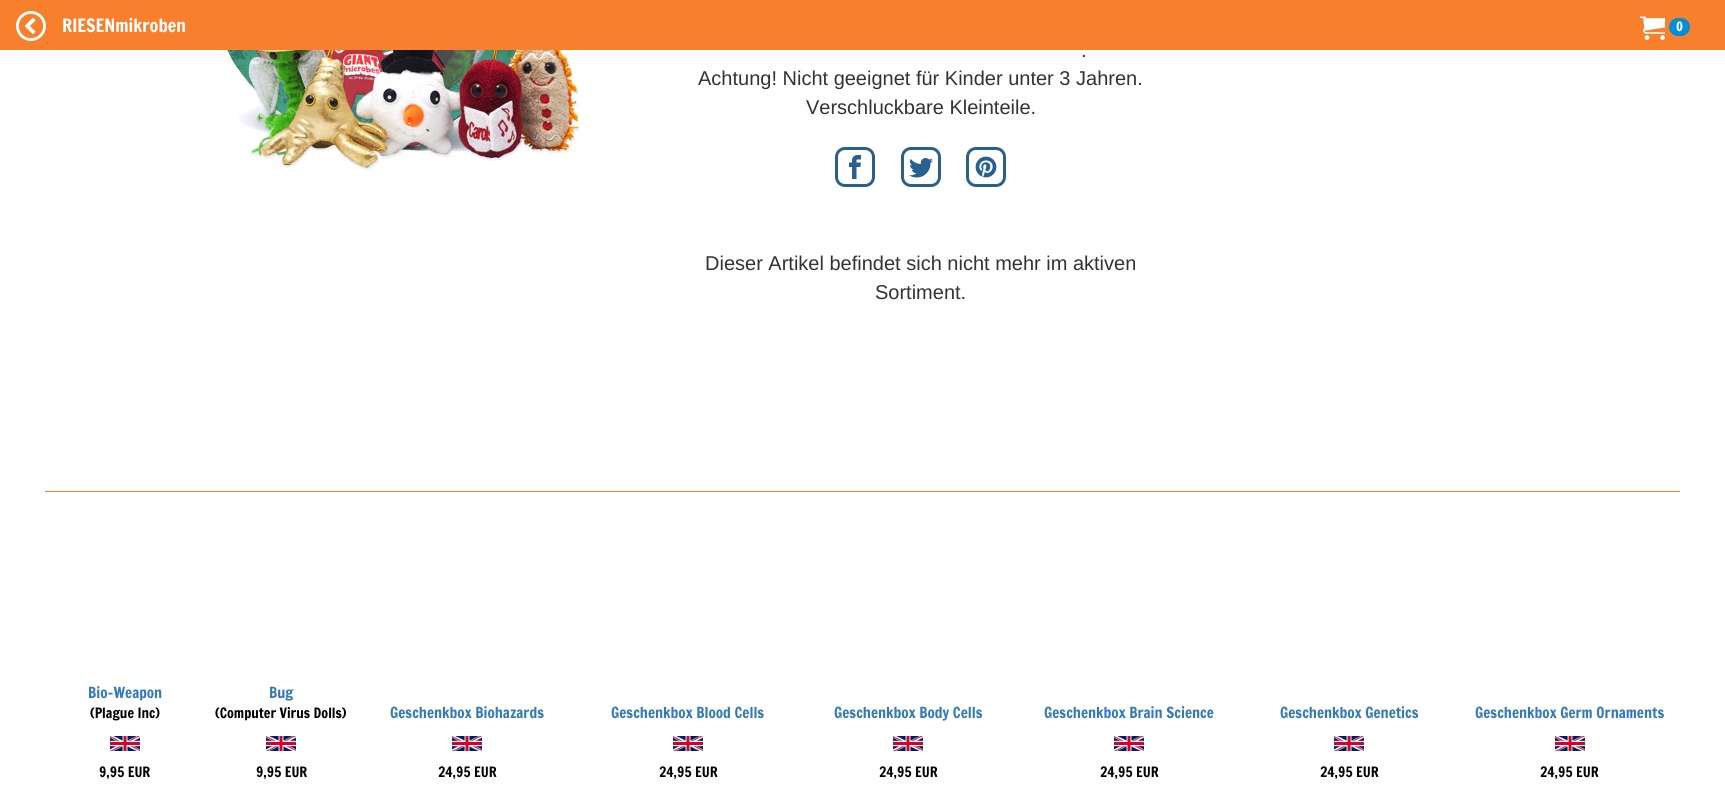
import math
import cairo


def round_path(ctx, x, y, w, h, r):
	ctx.new_sub_path()
	for i, (u, v) in enumerate([(x + w - r, y + h - r), (x + r, y + h - r), (x + r, y + r), (x + w - r, y + r)]):
		ctx.arc(u, v, r, i * math.pi / 2, (i + 1) * math.pi / 2)
	ctx.close_path()

def paste(ctx, path, x, y, w, h):
	ctx.save()
	ctx.set_source_surface(cairo.ImageSurface.create_from_png(path), x, y)
	ctx.rectangle(x, y, w, h)
	ctx.fill()
	ctx.restore()

def draw(ctx):
	ctx.set_source_rgb(1, 1, 1)
	ctx.paint()
	ctx.set_source_rgb(0.969, 0.498, 0.169)
	ctx.rectangle(0, 0, 1725, 50)
	ctx.fill()
	paste(ctx, 'media/1.png', 16, 11, 30, 30)
	ctx.select_font_face('Francois One')
	ctx.set_font_size(18)
	ctx.set_source_rgb(1, 1, 1)
	ctx.move_to(62, 32)
	ctx.show_text('RIESENmikroben')
	paste(ctx, 'media/2.png', 1640, 16, 25, 24)
	ctx.set_source_rgb(0.004, 0.557, 0.847)
	round_path(ctx, 1669, 18, 21, 18, 9)
	ctx.fill()
	ctx.select_font_face('Francois One', cairo.FONT_SLANT_NORMAL, cairo.FONT_WEIGHT_BOLD)
	ctx.set_font_size(12)
	ctx.set_source_rgb(1, 1, 1)
	ctx.move_to(1676, 31)
	ctx.show_text('0')
	paste(ctx, 'media/3.png', 211, 50, 369, 120)
	ctx.select_font_face('Liberation Sans')
	ctx.set_font_size(20)
	ctx.set_source_rgb(0.2, 0.2, 0.2)
	for x, y, s in [
		(1081, 57, '.'),
		(698, 85, 'Achtung! Nicht geeignet für Kinder unter 3 Jahren.'),
		(806, 114, 'Verschluckbare Kleinteile.'),
	]:
		ctx.move_to(x, y)
		ctx.show_text(s)
	round_path(ctx, 836.5, 148.5, 37, 37, 8.5)
	ctx.set_source_rgb(0.157, 0.376, 0.565)
	ctx.set_line_width(3)
	ctx.stroke()
	round_path(ctx, 902.5, 148.5, 37, 37, 8.5)
	ctx.stroke()
	round_path(ctx, 967.5, 148.5, 37, 37, 8.5)
	ctx.stroke()
	paste(ctx, 'media/4.png', 849, 155, 12, 24)
	paste(ctx, 'media/5.png', 909, 158, 24, 20)
	paste(ctx, 'media/6.png', 975, 156, 22, 22)
	ctx.set_source_rgb(0.2, 0.2, 0.2)
	ctx.move_to(705, 270)
	ctx.show_text('Dieser Artikel befindet sich nicht mehr im aktiven')
	ctx.move_to(875, 299)
	ctx.show_text('Sortiment.')
	ctx.set_source_rgb(0.969, 0.498, 0.169)
	ctx.rectangle(45, 491, 1635, 1)
	ctx.fill()
	ctx.select_font_face('Francois One')
	ctx.set_font_size(15)
	ctx.set_source_rgb(0.2, 0.478, 0.718)
	ctx.move_to(88, 698)
	ctx.show_text('Bio-Weapon')
	ctx.set_font_size(14)
	ctx.set_source_rgb(0, 0, 0)
	ctx.move_to(90, 718)
	ctx.show_text('(Plague Inc)')
	paste(ctx, 'media/7.png', 110, 736, 30, 15)
	ctx.move_to(99, 777)
	ctx.show_text('9,95 EUR')
	ctx.set_font_size(15)
	ctx.set_source_rgb(0.2, 0.478, 0.718)
	ctx.move_to(269, 698)
	ctx.show_text('Bug')
	ctx.set_font_size(14)
	ctx.set_source_rgb(0, 0, 0)
	ctx.move_to(215, 718)
	ctx.show_text('(Computer Virus Dolls)')
	paste(ctx, 'media/7.png', 266, 736, 30, 15)
	ctx.move_to(256, 777)
	ctx.show_text('9,95 EUR')
	ctx.set_font_size(15)
	ctx.set_source_rgb(0.2, 0.478, 0.718)
	ctx.move_to(390, 718)
	ctx.show_text('Geschenkbox Biohazards')
	paste(ctx, 'media/7.png', 452, 736, 30, 15)
	ctx.set_font_size(14)
	ctx.set_source_rgb(0, 0, 0)
	ctx.move_to(438, 777)
	ctx.show_text('24,95 EUR')
	ctx.set_font_size(15)
	ctx.set_source_rgb(0.2, 0.478, 0.718)
	ctx.move_to(611, 718)
	ctx.show_text('Geschenkbox Blood Cells')
	paste(ctx, 'media/7.png', 673, 736, 30, 15)
	ctx.set_font_size(14)
	ctx.set_source_rgb(0, 0, 0)
	ctx.move_to(659, 777)
	ctx.show_text('24,95 EUR')
	ctx.set_font_size(15)
	ctx.set_source_rgb(0.2, 0.478, 0.718)
	ctx.move_to(834, 718)
	ctx.show_text('Geschenkbox Body Cells')
	paste(ctx, 'media/7.png', 893, 736, 30, 15)
	ctx.set_font_size(14)
	ctx.set_source_rgb(0, 0, 0)
	ctx.move_to(879, 777)
	ctx.show_text('24,95 EUR')
	ctx.set_font_size(15)
	ctx.set_source_rgb(0.2, 0.478, 0.718)
	ctx.move_to(1044, 718)
	ctx.show_text('Geschenkbox Brain Science')
	paste(ctx, 'media/7.png', 1114, 736, 30, 15)
	ctx.set_font_size(14)
	ctx.set_source_rgb(0, 0, 0)
	ctx.move_to(1100, 777)
	ctx.show_text('24,95 EUR')
	ctx.set_font_size(15)
	ctx.set_source_rgb(0.2, 0.478, 0.718)
	ctx.move_to(1280, 718)
	ctx.show_text('Geschenkbox Genetics')
	paste(ctx, 'media/8.png', 1334, 736, 30, 15)
	ctx.set_font_size(14)
	ctx.set_source_rgb(0, 0, 0)
	ctx.move_to(1320, 777)
	ctx.show_text('24,95 EUR')
	ctx.set_font_size(15)
	ctx.set_source_rgb(0.2, 0.478, 0.718)
	ctx.move_to(1475, 718)
	ctx.show_text('Geschenkbox Germ Ornaments')
	paste(ctx, 'media/8.png', 1555, 736, 30, 15)
	ctx.set_font_size(14)
	ctx.set_source_rgb(0, 0, 0)
	ctx.move_to(1540, 777)
	ctx.show_text('24,95 EUR')


surface = cairo.ImageSurface(cairo.FORMAT_RGB24, 1725, 793)
ctx = cairo.Context(surface)
options = cairo.FontOptions()
options.set_hint_metrics(cairo.HINT_METRICS_OFF)
options.set_hint_style(cairo.HINT_STYLE_NONE)
ctx.set_font_options(options)
ctx.set_miter_limit(4)
draw(ctx)
surface.write_to_png('image.png')
